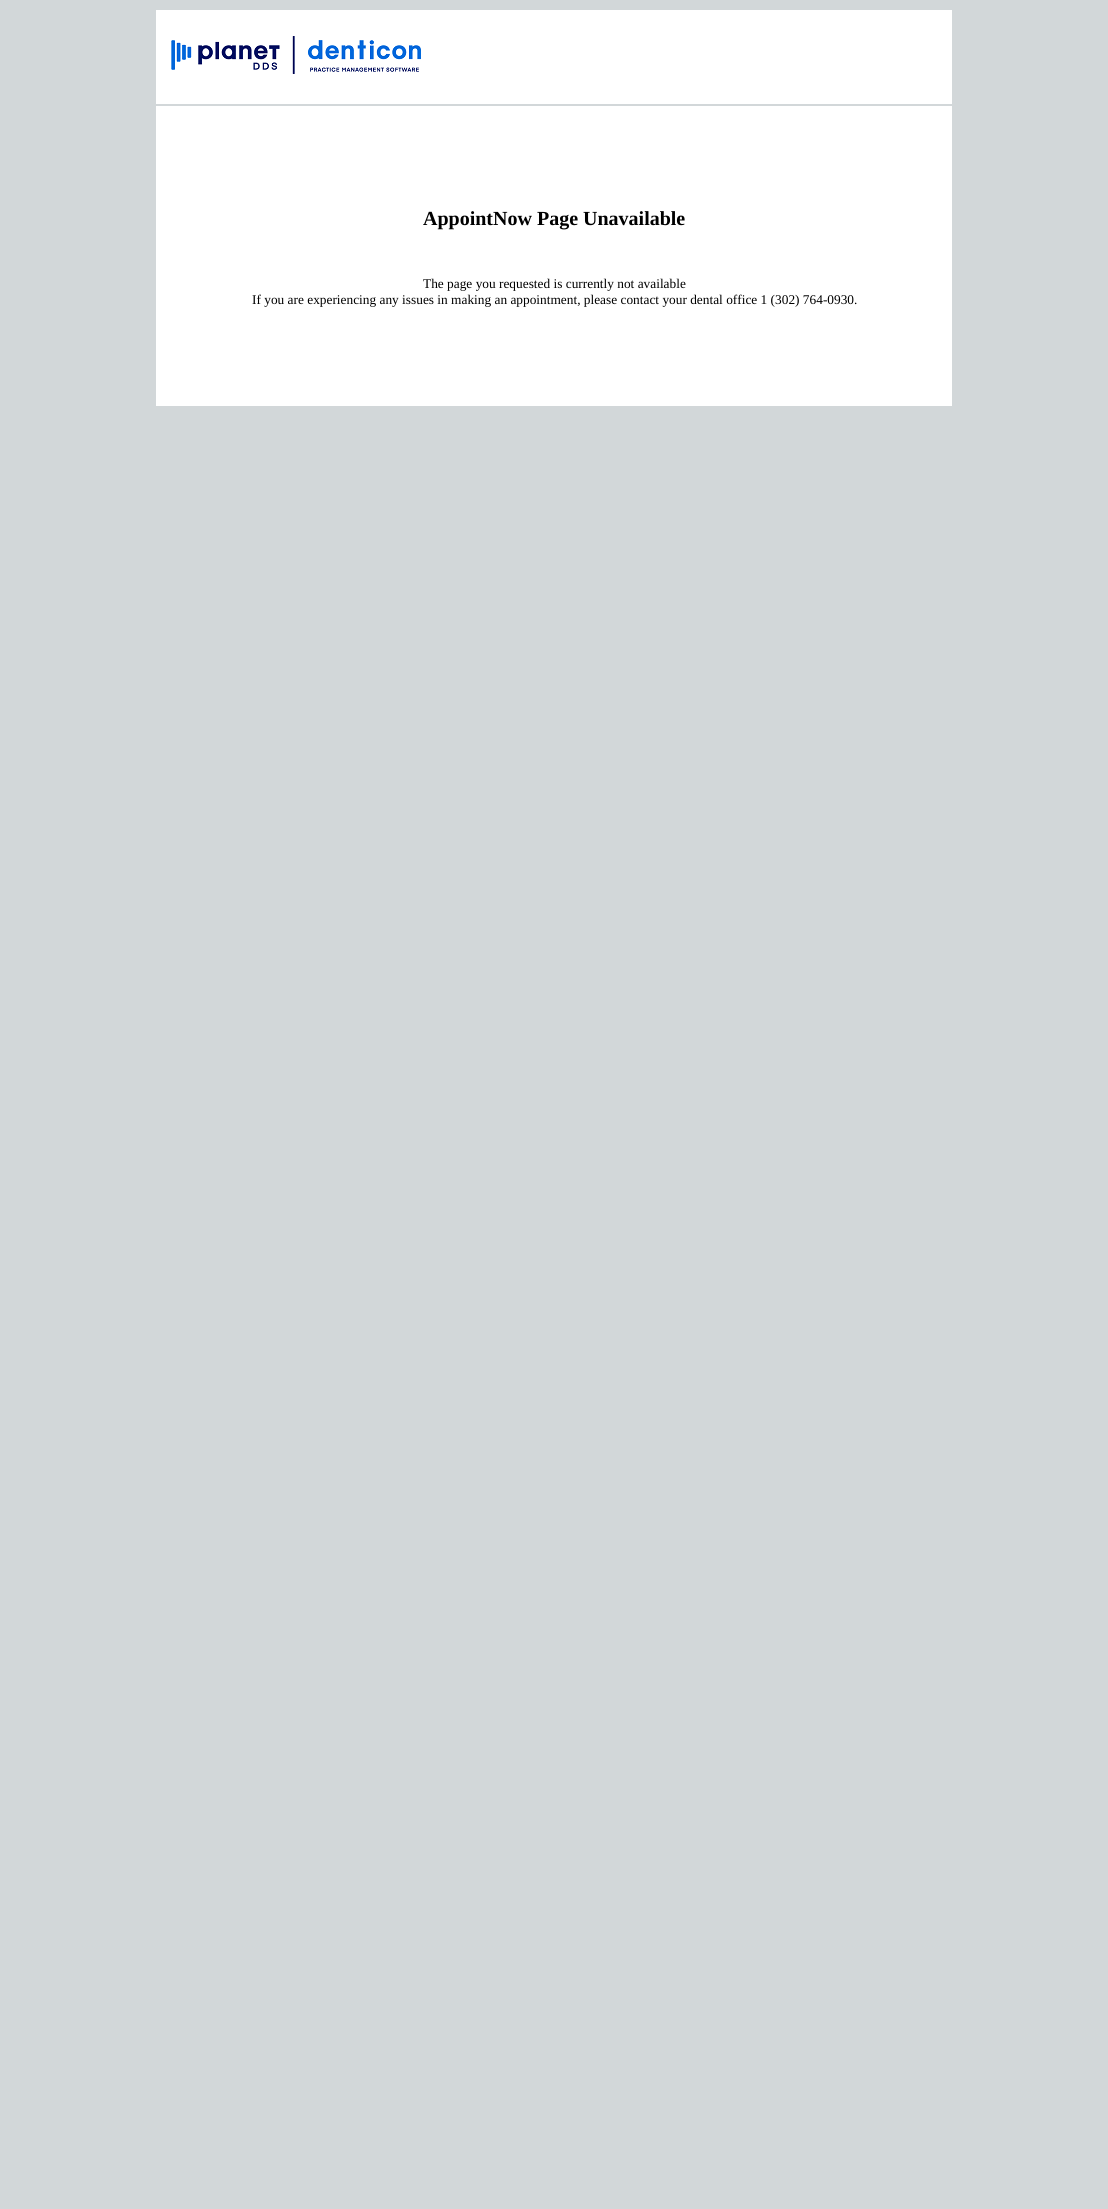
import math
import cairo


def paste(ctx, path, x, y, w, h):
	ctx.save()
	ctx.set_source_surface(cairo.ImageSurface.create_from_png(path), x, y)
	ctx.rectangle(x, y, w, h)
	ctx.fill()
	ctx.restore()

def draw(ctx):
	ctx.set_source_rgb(0.824, 0.843, 0.851)
	ctx.paint()
	ctx.set_source_rgb(1, 1, 1)
	ctx.rectangle(156, 10, 796, 94)
	ctx.fill()
	paste(ctx, 'media/1.png', 171, 36, 250, 38)
	ctx.rectangle(156, 106, 796, 300)
	ctx.fill()
	ctx.select_font_face('Liberation Serif', cairo.FONT_SLANT_NORMAL, cairo.FONT_WEIGHT_BOLD)
	ctx.set_font_size(20)
	ctx.set_source_rgb(0, 0, 0)
	ctx.move_to(423, 225)
	ctx.show_text('AppointNow Page Unavailable')
	ctx.select_font_face('Liberation Serif')
	ctx.set_font_size(13.35)
	ctx.move_to(423, 288)
	ctx.show_text('The page you requested is currently not available')
	ctx.move_to(252, 304)
	ctx.show_text('If you are experiencing any issues in making an appointment, please contact your dental office 1 (302) 764-0930.')


surface = cairo.ImageSurface(cairo.FORMAT_RGB24, 1108, 2209)
ctx = cairo.Context(surface)
options = cairo.FontOptions()
options.set_hint_metrics(cairo.HINT_METRICS_OFF)
options.set_hint_style(cairo.HINT_STYLE_NONE)
ctx.set_font_options(options)
ctx.set_miter_limit(4)
draw(ctx)
surface.write_to_png('image.png')
